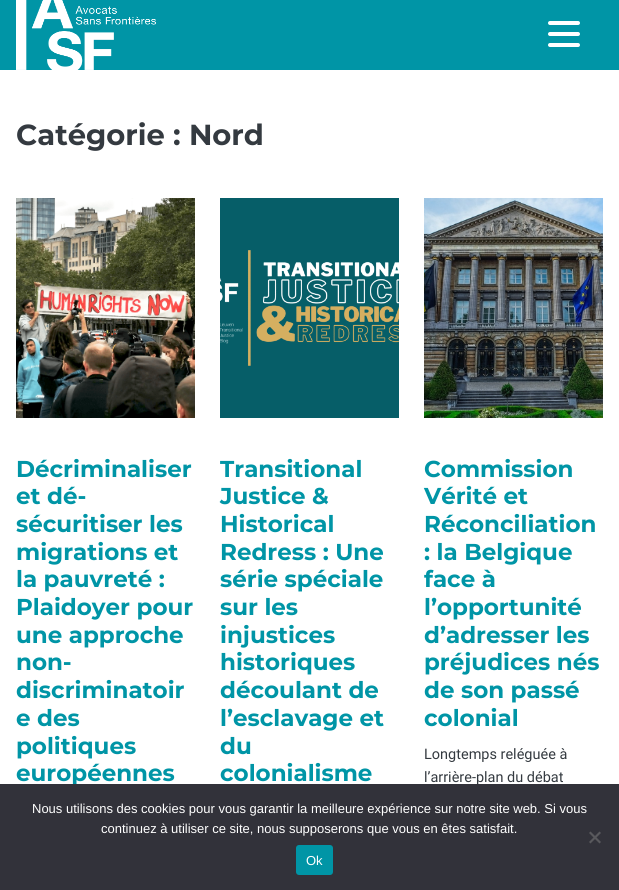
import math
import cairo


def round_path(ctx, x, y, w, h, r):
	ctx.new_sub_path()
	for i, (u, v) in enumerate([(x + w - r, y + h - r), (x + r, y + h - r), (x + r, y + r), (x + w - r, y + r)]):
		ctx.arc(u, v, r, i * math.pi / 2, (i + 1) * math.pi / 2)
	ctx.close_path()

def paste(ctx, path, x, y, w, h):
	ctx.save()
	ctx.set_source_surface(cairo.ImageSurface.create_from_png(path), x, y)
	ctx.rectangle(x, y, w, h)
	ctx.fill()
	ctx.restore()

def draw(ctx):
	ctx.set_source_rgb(1, 1, 1)
	ctx.paint()
	ctx.set_source_rgb(0, 0.584, 0.651)
	ctx.rectangle(0, 0, 619, 70)
	ctx.fill()
	paste(ctx, 'media/1.png', 16, 0, 140, 70)
	ctx.new_path()
	ctx.move_to(578, 23)
	ctx.line_to(550, 23)
	ctx.move_to(578, 34)
	ctx.line_to(550, 34)
	ctx.move_to(578, 45)
	ctx.line_to(550, 45)
	ctx.set_source_rgb(1, 1, 1)
	ctx.set_line_width(4)
	ctx.set_line_cap(cairo.LINE_CAP_ROUND)
	ctx.stroke()
	ctx.select_font_face('Montserrat', cairo.FONT_SLANT_NORMAL, cairo.FONT_WEIGHT_BOLD)
	ctx.set_font_size(29)
	ctx.set_source_rgb(0.204, 0.227, 0.251)
	ctx.move_to(16, 145)
	ctx.show_text('Catégorie : Nord')
	paste(ctx, 'media/2.png', 16, 198, 179, 220)
	ctx.set_font_size(23)
	ctx.set_source_rgb(0, 0.584, 0.651)
	for x, y, s in [
		(16, 477, 'Décriminaliser'),
		(16, 504, 'et dé-'),
		(16, 532, 'sécuritiser les'),
		(16, 560, 'migrations et'),
		(16, 587, 'la pauvreté :'),
		(16, 615, 'Plaidoyer pour'),
		(16, 643, 'une approche'),
		(16, 670, 'non-'),
		(16, 698, 'discriminatoir'),
		(16, 726, 'e des'),
		(16, 754, 'politiques'),
		(16, 781, 'européennes'),
	]:
		ctx.move_to(x, y)
		ctx.show_text(s)
	paste(ctx, 'media/3.png', 220, 198, 179, 220)
	for x, y, s in [
		(220, 477, 'Transitional'),
		(220, 504, 'Justice &'),
		(220, 532, 'Historical'),
		(220, 560, 'Redress : Une'),
		(220, 587, 'série spéciale'),
		(220, 615, 'sur les'),
		(220, 643, 'injustices'),
		(220, 670, 'historiques'),
		(220, 698, 'découlant de'),
		(220, 726, 'l’esclavage et'),
		(220, 754, 'du'),
		(220, 781, 'colonialisme'),
	]:
		ctx.move_to(x, y)
		ctx.show_text(s)
	paste(ctx, 'media/4.png', 424, 198, 179, 220)
	for x, y, s in [
		(424, 477, 'Commission'),
		(424, 504, 'Vérité et'),
		(424, 532, 'Réconciliation'),
		(424, 560, ': la Belgique'),
		(424, 587, 'face à'),
		(424, 615, 'l’opportunité'),
		(424, 643, 'd’adresser les'),
		(424, 670, 'préjudices nés'),
		(424, 698, 'de son passé'),
		(424, 726, 'colonial'),
	]:
		ctx.move_to(x, y)
		ctx.show_text(s)
	ctx.select_font_face('Roboto')
	ctx.set_font_size(14.5)
	ctx.set_source_rgb(0.204, 0.227, 0.251)
	ctx.move_to(424, 759)
	ctx.show_text('Longtemps reléguée à')
	ctx.move_to(424, 782)
	ctx.show_text('l’arrière-plan du débat')
	ctx.set_source_rgb(0.196, 0.196, 0.227)
	ctx.rectangle(0, 784, 619, 106)
	ctx.fill()
	ctx.select_font_face('Liberation Sans')
	ctx.set_font_size(13)
	ctx.set_source_rgb(1, 1, 1)
	ctx.move_to(32, 813)
	ctx.show_text('Nous utilisons des cookies pour vous garantir la meilleure expérience sur notre site web. Si vous')
	ctx.move_to(101, 833)
	ctx.show_text('continuez à utiliser ce site, nous supposerons que vous en êtes satisfait.')
	ctx.set_source_rgb(0.349, 0.349, 0.365)
	ctx.new_path()
	ctx.move_to(599.5, 831.5)
	ctx.line_to(601, 833)
	ctx.line_to(590.5, 843.5)
	ctx.line_to(589, 842)
	ctx.close_path()
	ctx.fill()
	ctx.new_path()
	ctx.move_to(589, 833)
	ctx.line_to(590.5, 831.5)
	ctx.line_to(601, 842)
	ctx.line_to(599.5, 843.5)
	ctx.close_path()
	ctx.fill()
	ctx.set_source_rgb(0, 0.584, 0.651)
	round_path(ctx, 296, 845, 37, 30, 3)
	ctx.fill()
	ctx.set_source_rgb(1, 1, 1)
	ctx.move_to(306, 865)
	ctx.show_text('Ok')


surface = cairo.ImageSurface(cairo.FORMAT_RGB24, 619, 890)
ctx = cairo.Context(surface)
options = cairo.FontOptions()
options.set_hint_metrics(cairo.HINT_METRICS_OFF)
options.set_hint_style(cairo.HINT_STYLE_NONE)
ctx.set_font_options(options)
ctx.set_miter_limit(4)
draw(ctx)
surface.write_to_png('image.png')
